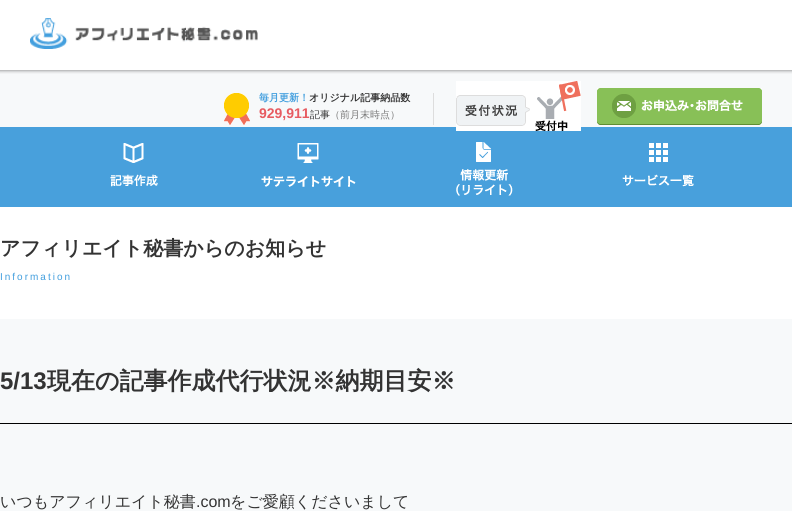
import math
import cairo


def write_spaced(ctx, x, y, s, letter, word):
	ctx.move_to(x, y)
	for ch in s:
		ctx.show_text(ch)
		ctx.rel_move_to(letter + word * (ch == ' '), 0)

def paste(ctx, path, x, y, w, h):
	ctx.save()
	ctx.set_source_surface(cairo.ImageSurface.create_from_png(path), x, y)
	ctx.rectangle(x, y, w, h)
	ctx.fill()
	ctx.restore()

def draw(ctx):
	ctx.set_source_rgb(0.965, 0.973, 0.98)
	ctx.paint()
	paste(ctx, 'media/1.png', 0, 0, 792, 74)
	paste(ctx, 'media/2.png', 30, 18, 228, 31)
	ctx.set_source_rgb(0.867, 0.867, 0.867)
	ctx.rectangle(433, 93, 1, 32)
	ctx.fill()
	paste(ctx, 'media/3.png', 224, 93, 26, 32)
	ctx.select_font_face('WenQuanYi Zen Hei', cairo.FONT_SLANT_NORMAL, cairo.FONT_WEIGHT_BOLD)
	ctx.set_font_size(10)
	ctx.set_source_rgb(0.263, 0.624, 0.871)
	ctx.move_to(259, 101)
	ctx.show_text('毎月更新！')
	ctx.save()
	ctx.rectangle(224, 93, 210, 32)
	ctx.clip()
	ctx.set_source_rgb(0.2, 0.2, 0.2)
	ctx.move_to(309, 101)
	ctx.show_text('オリジナル記事納品数')
	ctx.restore()
	ctx.select_font_face('Liberation Sans', cairo.FONT_SLANT_NORMAL, cairo.FONT_WEIGHT_BOLD)
	ctx.set_font_size(14)
	ctx.set_source_rgb(0.906, 0.357, 0.38)
	ctx.move_to(259, 118)
	ctx.show_text('929,911')
	ctx.select_font_face('WenQuanYi Zen Hei Medium')
	ctx.set_font_size(10)
	ctx.set_source_rgb(0.2, 0.2, 0.2)
	ctx.move_to(310, 118)
	ctx.show_text('記事')
	ctx.set_source_rgb(0.467, 0.467, 0.467)
	ctx.move_to(330, 118)
	ctx.show_text('（前月末時点）')
	ctx.set_source_rgb(0.282, 0.627, 0.863)
	ctx.rectangle(0, 127, 792, 80)
	ctx.fill()
	paste(ctx, 'media/4.png', 456, 81, 125, 50)
	paste(ctx, 'media/5.png', 597, 88, 165, 37)
	paste(ctx, 'media/6.png', 110, 143, 48, 44)
	paste(ctx, 'media/7.png', 261, 143, 95, 44)
	paste(ctx, 'media/8.png', 456, 142, 57, 54)
	paste(ctx, 'media/9.png', 622, 143, 72, 44)
	ctx.set_source_rgb(1, 1, 1)
	ctx.rectangle(0, 207, 792, 112)
	ctx.fill()
	ctx.select_font_face('WenQuanYi Zen Hei', cairo.FONT_SLANT_NORMAL, cairo.FONT_WEIGHT_BOLD)
	ctx.set_font_size(20)
	ctx.set_source_rgb(0.2, 0.2, 0.2)
	ctx.move_to(0, 255)
	ctx.show_text('アフィリエイト秘書からのお知らせ')
	ctx.select_font_face('Liberation Sans')
	ctx.set_font_size(10)
	ctx.set_source_rgb(0.263, 0.624, 0.871)
	write_spaced(ctx, 0, 280, 'Information', 2, 0)
	ctx.set_source_rgb(0, 0, 0)
	ctx.rectangle(0, 423, 792, 1)
	ctx.fill()
	ctx.select_font_face('Liberation Sans', cairo.FONT_SLANT_NORMAL, cairo.FONT_WEIGHT_BOLD)
	ctx.set_font_size(24)
	ctx.set_source_rgb(0.2, 0.2, 0.2)
	ctx.move_to(0, 389)
	ctx.show_text('5/13')
	ctx.select_font_face('WenQuanYi Zen Hei', cairo.FONT_SLANT_NORMAL, cairo.FONT_WEIGHT_BOLD)
	ctx.move_to(47, 389)
	ctx.show_text('現在の記事作成代行状況※納期目安※')
	ctx.select_font_face('WenQuanYi Zen Hei Medium')
	ctx.set_font_size(16)
	ctx.move_to(0, 507)
	ctx.show_text('いつもアフィリエイト秘書')
	ctx.select_font_face('Liberation Sans')
	ctx.move_to(196, 507)
	ctx.show_text('.com')
	ctx.select_font_face('WenQuanYi Zen Hei Medium')
	ctx.move_to(230, 507)
	ctx.show_text('をご愛顧くださいまして')


surface = cairo.ImageSurface(cairo.FORMAT_RGB24, 792, 511)
ctx = cairo.Context(surface)
options = cairo.FontOptions()
options.set_hint_metrics(cairo.HINT_METRICS_OFF)
options.set_hint_style(cairo.HINT_STYLE_NONE)
ctx.set_font_options(options)
ctx.set_miter_limit(4)
draw(ctx)
surface.write_to_png('image.png')
